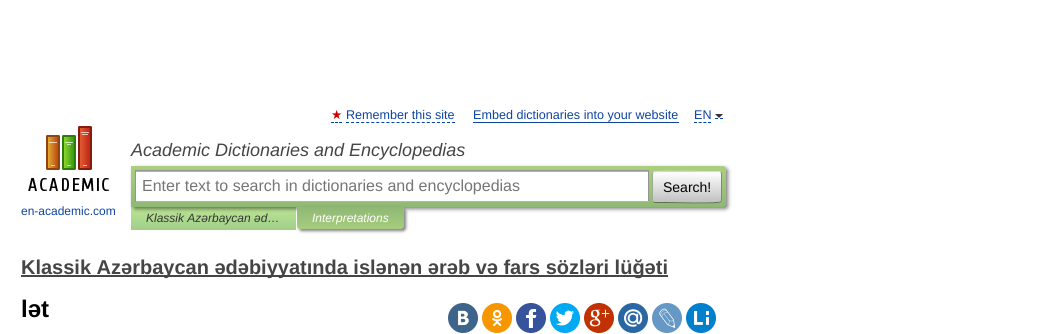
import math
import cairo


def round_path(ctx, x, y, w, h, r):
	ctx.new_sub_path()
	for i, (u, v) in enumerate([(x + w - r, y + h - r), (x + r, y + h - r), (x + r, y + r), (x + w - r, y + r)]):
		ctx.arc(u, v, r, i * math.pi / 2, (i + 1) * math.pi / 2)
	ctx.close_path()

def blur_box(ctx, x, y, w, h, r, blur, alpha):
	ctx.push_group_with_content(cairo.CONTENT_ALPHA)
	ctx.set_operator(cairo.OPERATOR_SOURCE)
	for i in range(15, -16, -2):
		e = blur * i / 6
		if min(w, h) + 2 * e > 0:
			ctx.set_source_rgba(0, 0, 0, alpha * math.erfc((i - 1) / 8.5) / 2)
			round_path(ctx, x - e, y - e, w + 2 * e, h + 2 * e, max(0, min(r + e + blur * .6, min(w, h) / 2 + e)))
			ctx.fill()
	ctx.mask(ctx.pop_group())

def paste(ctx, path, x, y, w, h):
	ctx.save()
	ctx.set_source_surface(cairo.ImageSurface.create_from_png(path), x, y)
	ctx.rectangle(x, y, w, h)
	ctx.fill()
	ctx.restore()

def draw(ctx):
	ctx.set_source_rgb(1, 1, 1)
	ctx.paint()
	ctx.select_font_face('DejaVu Sans')
	ctx.set_font_size(12.6)
	ctx.set_source_rgb(0.8, 0, 0)
	ctx.move_to(331, 119)
	ctx.show_text('★')
	ctx.new_path()
	ctx.move_to(331, 122.5)
	ctx.line_to(334, 122.5)
	ctx.move_to(335, 122.5)
	ctx.line_to(338, 122.5)
	ctx.move_to(339, 122.5)
	ctx.line_to(342, 122.5)
	ctx.set_source_rgb(0, 0.267, 0.667)
	ctx.set_line_width(1)
	ctx.stroke()
	ctx.select_font_face('Liberation Sans')
	ctx.set_source_rgb(0.051, 0.267, 0.627)
	ctx.move_to(346, 119)
	ctx.show_text('Remember this site')
	ctx.new_path()
	ctx.move_to(346, 122.5)
	ctx.line_to(455, 122.5)
	ctx.set_source_rgb(0, 0.267, 0.667)
	ctx.set_dash([3, 2.05])
	ctx.stroke()
	ctx.set_source_rgb(0.051, 0.267, 0.627)
	ctx.move_to(473, 119)
	ctx.show_text('Embed dictionaries into your website')
	ctx.rectangle(473, 122, 206, 1)
	ctx.fill()
	ctx.new_path()
	ctx.move_to(694, 122.5)
	ctx.line_to(711, 122.5)
	ctx.set_source_rgb(0, 0.267, 0.667)
	ctx.set_dash([3, 1.67])
	ctx.stroke()
	ctx.new_path()
	ctx.move_to(715, 118.5)
	ctx.line_to(718, 118.5)
	ctx.move_to(720, 118.5)
	ctx.line_to(723, 118.5)
	ctx.set_dash([])
	ctx.stroke()
	ctx.set_source_rgb(0.051, 0.267, 0.627)
	ctx.move_to(694, 119)
	ctx.show_text('EN')
	ctx.set_source_rgb(0.2, 0.2, 0.2)
	ctx.new_path()
	ctx.move_to(715, 114)
	ctx.line_to(723, 114)
	ctx.line_to(719, 118)
	ctx.close_path()
	ctx.fill()
	ctx.select_font_face('Liberation Sans', cairo.FONT_SLANT_ITALIC)
	ctx.set_font_size(18)
	ctx.set_source_rgb(0.271, 0.271, 0.271)
	ctx.move_to(131, 156)
	ctx.show_text('Academic Dictionaries and Encyclopedias')
	gradient = cairo.LinearGradient(214, 207, 214, 230)
	gradient.add_color_stop_rgba(0, 0.741, 0.902, 0.576, 1)
	gradient.add_color_stop_rgba(1, 0.627, 0.808, 0.541, 1)
	ctx.set_source(gradient)
	ctx.rectangle(131, 207, 165, 23)
	ctx.fill()
	ctx.set_source_rgb(0, 0, 0)
	blur_box(ctx, 133, 168, 595, 41, 3, 2, 0.5)
	gradient = cairo.LinearGradient(429, 166, 429, 207)
	gradient.add_color_stop_rgba(0, 0.671, 0.812, 0.494, 1)
	gradient.add_color_stop_rgba(1, 0.557, 0.722, 0.455, 1)
	ctx.set_source(gradient)
	ctx.new_path()
	ctx.move_to(131, 166)
	ctx.line_to(723, 166)
	ctx.curve_to(724.5, 166, 726, 167.5, 726, 169)
	ctx.line_to(726, 204)
	ctx.curve_to(726, 205.5, 724.5, 207, 723, 207)
	ctx.line_to(131, 207)
	ctx.close_path()
	ctx.fill()
	ctx.set_source_rgb(1, 1, 1)
	ctx.rectangle(136, 172, 512, 29)
	ctx.fill()
	ctx.set_source_rgb(0.702, 0.702, 0.702)
	ctx.rectangle(136, 171, 512, 1)
	ctx.fill()
	ctx.set_source_rgb(0.58, 0.58, 0.58)
	ctx.rectangle(135, 170, 514, 1)
	ctx.rectangle(648, 170, 1, 32)
	ctx.fill()
	ctx.set_source_rgb(0.706, 0.706, 0.706)
	ctx.rectangle(135, 201, 514, 1)
	ctx.fill()
	ctx.set_source_rgb(0.58, 0.58, 0.58)
	ctx.rectangle(135, 170, 1, 32)
	ctx.fill()
	ctx.select_font_face('Liberation Sans')
	ctx.set_font_size(16)
	ctx.set_source_rgb(0.459, 0.459, 0.459)
	ctx.move_to(142, 191)
	ctx.show_text('Enter text to search in dictionaries and encyclopedias')
	ctx.save()
	round_path(ctx, 652, 171, 70, 32, 3)
	ctx.clip()
	gradient = cairo.LinearGradient(687, 142, 687, 172)
	gradient.add_color_stop_rgba(0, 1, 1, 1, 1)
	gradient.add_color_stop_rgba(1, 0.757, 0.757, 0.757, 1)
	ctx.set_source(gradient)
	ctx.rectangle(652, 171, 70, 1)
	ctx.fill()
	gradient = cairo.LinearGradient(687, 172, 687, 202)
	gradient.add_color_stop_rgba(0, 1, 1, 1, 1)
	gradient.add_color_stop_rgba(1, 0.757, 0.757, 0.757, 1)
	ctx.set_source(gradient)
	ctx.rectangle(652, 172, 70, 30)
	ctx.fill()
	gradient = cairo.LinearGradient(687, 202, 687, 232)
	gradient.add_color_stop_rgba(0, 1, 1, 1, 1)
	gradient.add_color_stop_rgba(1, 0.757, 0.757, 0.757, 1)
	ctx.set_source(gradient)
	ctx.rectangle(652, 202, 70, 1)
	ctx.fill()
	ctx.restore()
	ctx.new_path()
	ctx.move_to(653, 172)
	ctx.line_to(653.5, 172)
	ctx.curve_to(655.5, 170.5, 702, 171.5, 708.5, 171.5)
	ctx.line_to(719, 171.5)
	ctx.line_to(721, 172)
	ctx.set_source_rgb(0.82, 0.894, 0.737)
	ctx.stroke()
	ctx.new_path()
	ctx.move_to(721, 172)
	ctx.curve_to(721, 172.5, 721.5, 173.5, 721.5, 174)
	ctx.line_to(721.5, 200)
	ctx.curve_to(721.5, 200.5, 721, 201.5, 721, 202)
	ctx.set_source_rgb(0.478, 0.557, 0.412)
	ctx.stroke()
	ctx.new_path()
	ctx.move_to(721, 202)
	ctx.line_to(720.5, 202)
	ctx.curve_to(718.5, 203.5, 672, 202.5, 665.5, 202.5)
	ctx.line_to(655, 202.5)
	ctx.line_to(653, 202)
	ctx.set_source_rgb(0.365, 0.447, 0.314)
	ctx.stroke()
	ctx.new_path()
	ctx.move_to(653, 202)
	ctx.curve_to(653, 201.5, 652.5, 200.5, 652.5, 200)
	ctx.line_to(652.5, 174)
	ctx.curve_to(652.5, 173.5, 653, 172.5, 653, 172)
	ctx.set_source_rgb(0.604, 0.682, 0.537)
	ctx.stroke()
	ctx.set_font_size(14)
	ctx.set_source_rgb(0, 0, 0)
	ctx.move_to(663, 192)
	ctx.show_text('Search!')
	paste(ctx, 'media/1.png', 28, 126, 81, 65)
	ctx.set_font_size(12)
	ctx.set_source_rgb(0.051, 0.267, 0.627)
	ctx.move_to(21, 215)
	ctx.show_text('en-academic.com')
	ctx.select_font_face('Liberation Sans', cairo.FONT_SLANT_ITALIC)
	ctx.set_source_rgb(0.208, 0.208, 0.208)
	ctx.move_to(146, 222)
	ctx.show_text('Klassik Azərbaycan əd…')
	ctx.set_source_rgb(0, 0, 0)
	blur_box(ctx, 299, 209, 107, 22, 3, 1.5, 0.5)
	gradient = cairo.LinearGradient(351, 207, 351, 229)
	gradient.add_color_stop_rgba(0, 0.561, 0.722, 0.459, 1)
	gradient.add_color_stop_rgba(1, 0.655, 0.8, 0.49, 1)
	ctx.set_source(gradient)
	ctx.new_path()
	ctx.move_to(297, 207)
	ctx.line_to(404, 207)
	ctx.line_to(404, 226)
	ctx.curve_to(404, 227.5, 402.5, 229, 401, 229)
	ctx.line_to(300, 229)
	ctx.curve_to(298.5, 229, 297, 227.5, 297, 226)
	ctx.close_path()
	ctx.fill()
	ctx.set_source_rgb(1, 1, 1)
	ctx.move_to(312, 222)
	ctx.show_text('Interpretations')
	ctx.set_source_rgb(0.271, 0.271, 0.271)
	ctx.rectangle(21, 275, 647, 2)
	ctx.fill()
	ctx.select_font_face('Liberation Sans', cairo.FONT_SLANT_NORMAL, cairo.FONT_WEIGHT_BOLD)
	ctx.set_font_size(20)
	ctx.move_to(21, 274)
	ctx.show_text('Klassik Azərbaycan ədəbiyyatında islənən ərəb və fars sözləri lüğəti')
	ctx.set_font_size(24)
	ctx.set_source_rgb(0, 0, 0)
	ctx.move_to(21, 317)
	ctx.show_text('lət')
	paste(ctx, 'media/2.png', 448, 303, 30, 30)
	paste(ctx, 'media/3.png', 482, 303, 30, 30)
	paste(ctx, 'media/4.png', 516, 303, 30, 30)
	paste(ctx, 'media/5.png', 550, 303, 30, 30)
	paste(ctx, 'media/6.png', 584, 303, 30, 30)
	paste(ctx, 'media/7.png', 618, 303, 30, 30)
	paste(ctx, 'media/8.png', 652, 303, 30, 30)
	paste(ctx, 'media/9.png', 686, 303, 30, 30)


surface = cairo.ImageSurface(cairo.FORMAT_RGB24, 1062, 334)
ctx = cairo.Context(surface)
options = cairo.FontOptions()
options.set_hint_metrics(cairo.HINT_METRICS_OFF)
options.set_hint_style(cairo.HINT_STYLE_NONE)
ctx.set_font_options(options)
ctx.set_miter_limit(4)
draw(ctx)
surface.write_to_png('image.png')
